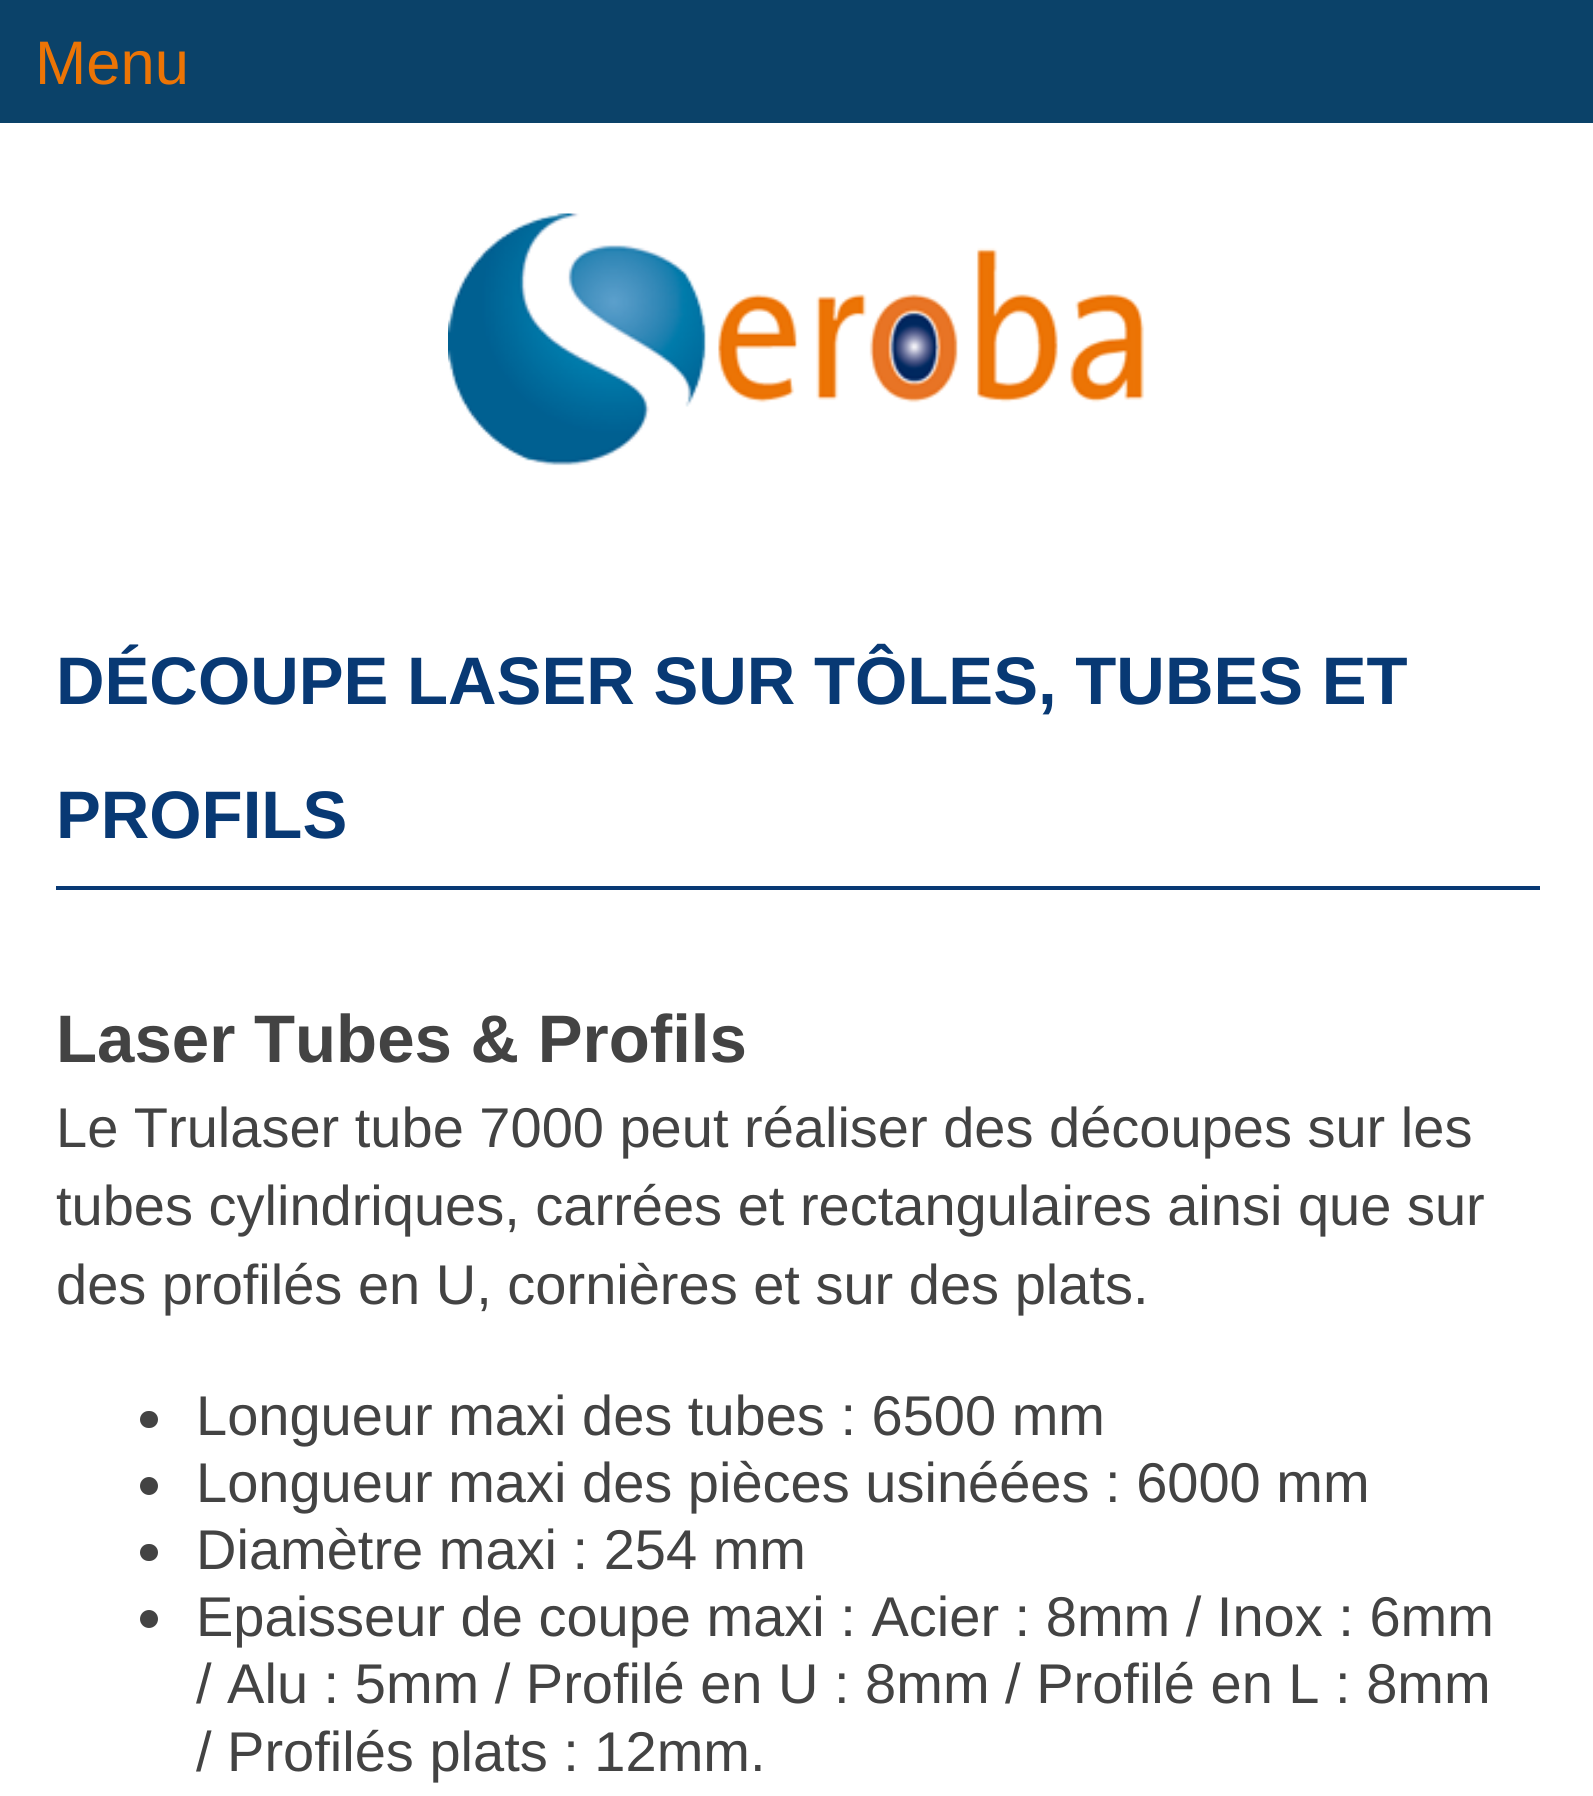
import math
import cairo


def round_path(ctx, x, y, w, h, r):
	ctx.new_sub_path()
	for i, (u, v) in enumerate([(x + w - r, y + h - r), (x + r, y + h - r), (x + r, y + r), (x + w - r, y + r)]):
		ctx.arc(u, v, r, i * math.pi / 2, (i + 1) * math.pi / 2)
	ctx.close_path()

def paste(ctx, path, x, y, w, h):
	ctx.save()
	ctx.set_source_surface(cairo.ImageSurface.create_from_png(path), x, y)
	ctx.rectangle(x, y, w, h)
	ctx.fill()
	ctx.restore()

def draw(ctx):
	ctx.set_source_rgb(1, 1, 1)
	ctx.paint()
	ctx.set_source_rgb(0.043, 0.259, 0.412)
	ctx.rectangle(0, 0, 1593, 123)
	ctx.fill()
	ctx.select_font_face('Liberation Sans')
	ctx.set_font_size(61.5)
	ctx.set_source_rgb(0.925, 0.455, 0.02)
	ctx.move_to(35, 84)
	ctx.show_text('Menu')
	paste(ctx, 'media/1.png', 448, 213, 697, 253)
	ctx.set_source_rgb(0.035, 0.224, 0.455)
	ctx.rectangle(56, 886, 1484, 4)
	ctx.fill()
	ctx.select_font_face('Liberation Sans', cairo.FONT_SLANT_NORMAL, cairo.FONT_WEIGHT_BOLD)
	ctx.set_font_size(67.2)
	ctx.move_to(56, 704)
	ctx.show_text('DÉCOUPE LASER SUR TÔLES, TUBES ET')
	ctx.move_to(56, 838)
	ctx.show_text('PROFILS')
	ctx.set_source_rgb(0.263, 0.263, 0.263)
	ctx.move_to(56, 1062)
	ctx.show_text('Laser Tubes & Profils')
	ctx.select_font_face('Liberation Sans')
	ctx.set_font_size(56)
	for x, y, s in [
		(56, 1147, 'Le Trulaser tube 7000 peut réaliser des découpes sur les'),
		(56, 1225, 'tubes cylindriques, carrées et rectangulaires ainsi que sur'),
		(56, 1304, 'des profilés en U, cornières et sur des plats.'),
	]:
		ctx.move_to(x, y)
		ctx.show_text(s)
	round_path(ctx, 140, 1411, 18, 17, 8.5)
	ctx.fill()
	ctx.move_to(196, 1435)
	ctx.show_text('Longueur maxi des tubes : 6500 mm')
	ctx.new_path()
	ctx.arc(149, 1486, 9, 0, 2 * math.pi)
	ctx.fill()
	ctx.move_to(196, 1502)
	ctx.show_text('Longueur maxi des pièces usinéées : 6000 mm')
	round_path(ctx, 140, 1544, 18, 17, 8.5)
	ctx.fill()
	ctx.move_to(196, 1569)
	ctx.show_text('Diamètre maxi : 254 mm')
	ctx.new_path()
	ctx.arc(149, 1619, 9, 0, 2 * math.pi)
	ctx.fill()
	for x, y, s in [
		(196, 1636, 'Epaisseur de coupe maxi : Acier : 8mm / Inox : 6mm'),
		(196, 1703, '/ Alu : 5mm / Profilé en U : 8mm / Profilé en L : 8mm'),
		(196, 1771, '/ Profilés plats : 12mm.'),
	]:
		ctx.move_to(x, y)
		ctx.show_text(s)


surface = cairo.ImageSurface(cairo.FORMAT_RGB24, 1593, 1796)
ctx = cairo.Context(surface)
options = cairo.FontOptions()
options.set_hint_metrics(cairo.HINT_METRICS_OFF)
options.set_hint_style(cairo.HINT_STYLE_NONE)
ctx.set_font_options(options)
ctx.set_miter_limit(4)
draw(ctx)
surface.write_to_png('image.png')
